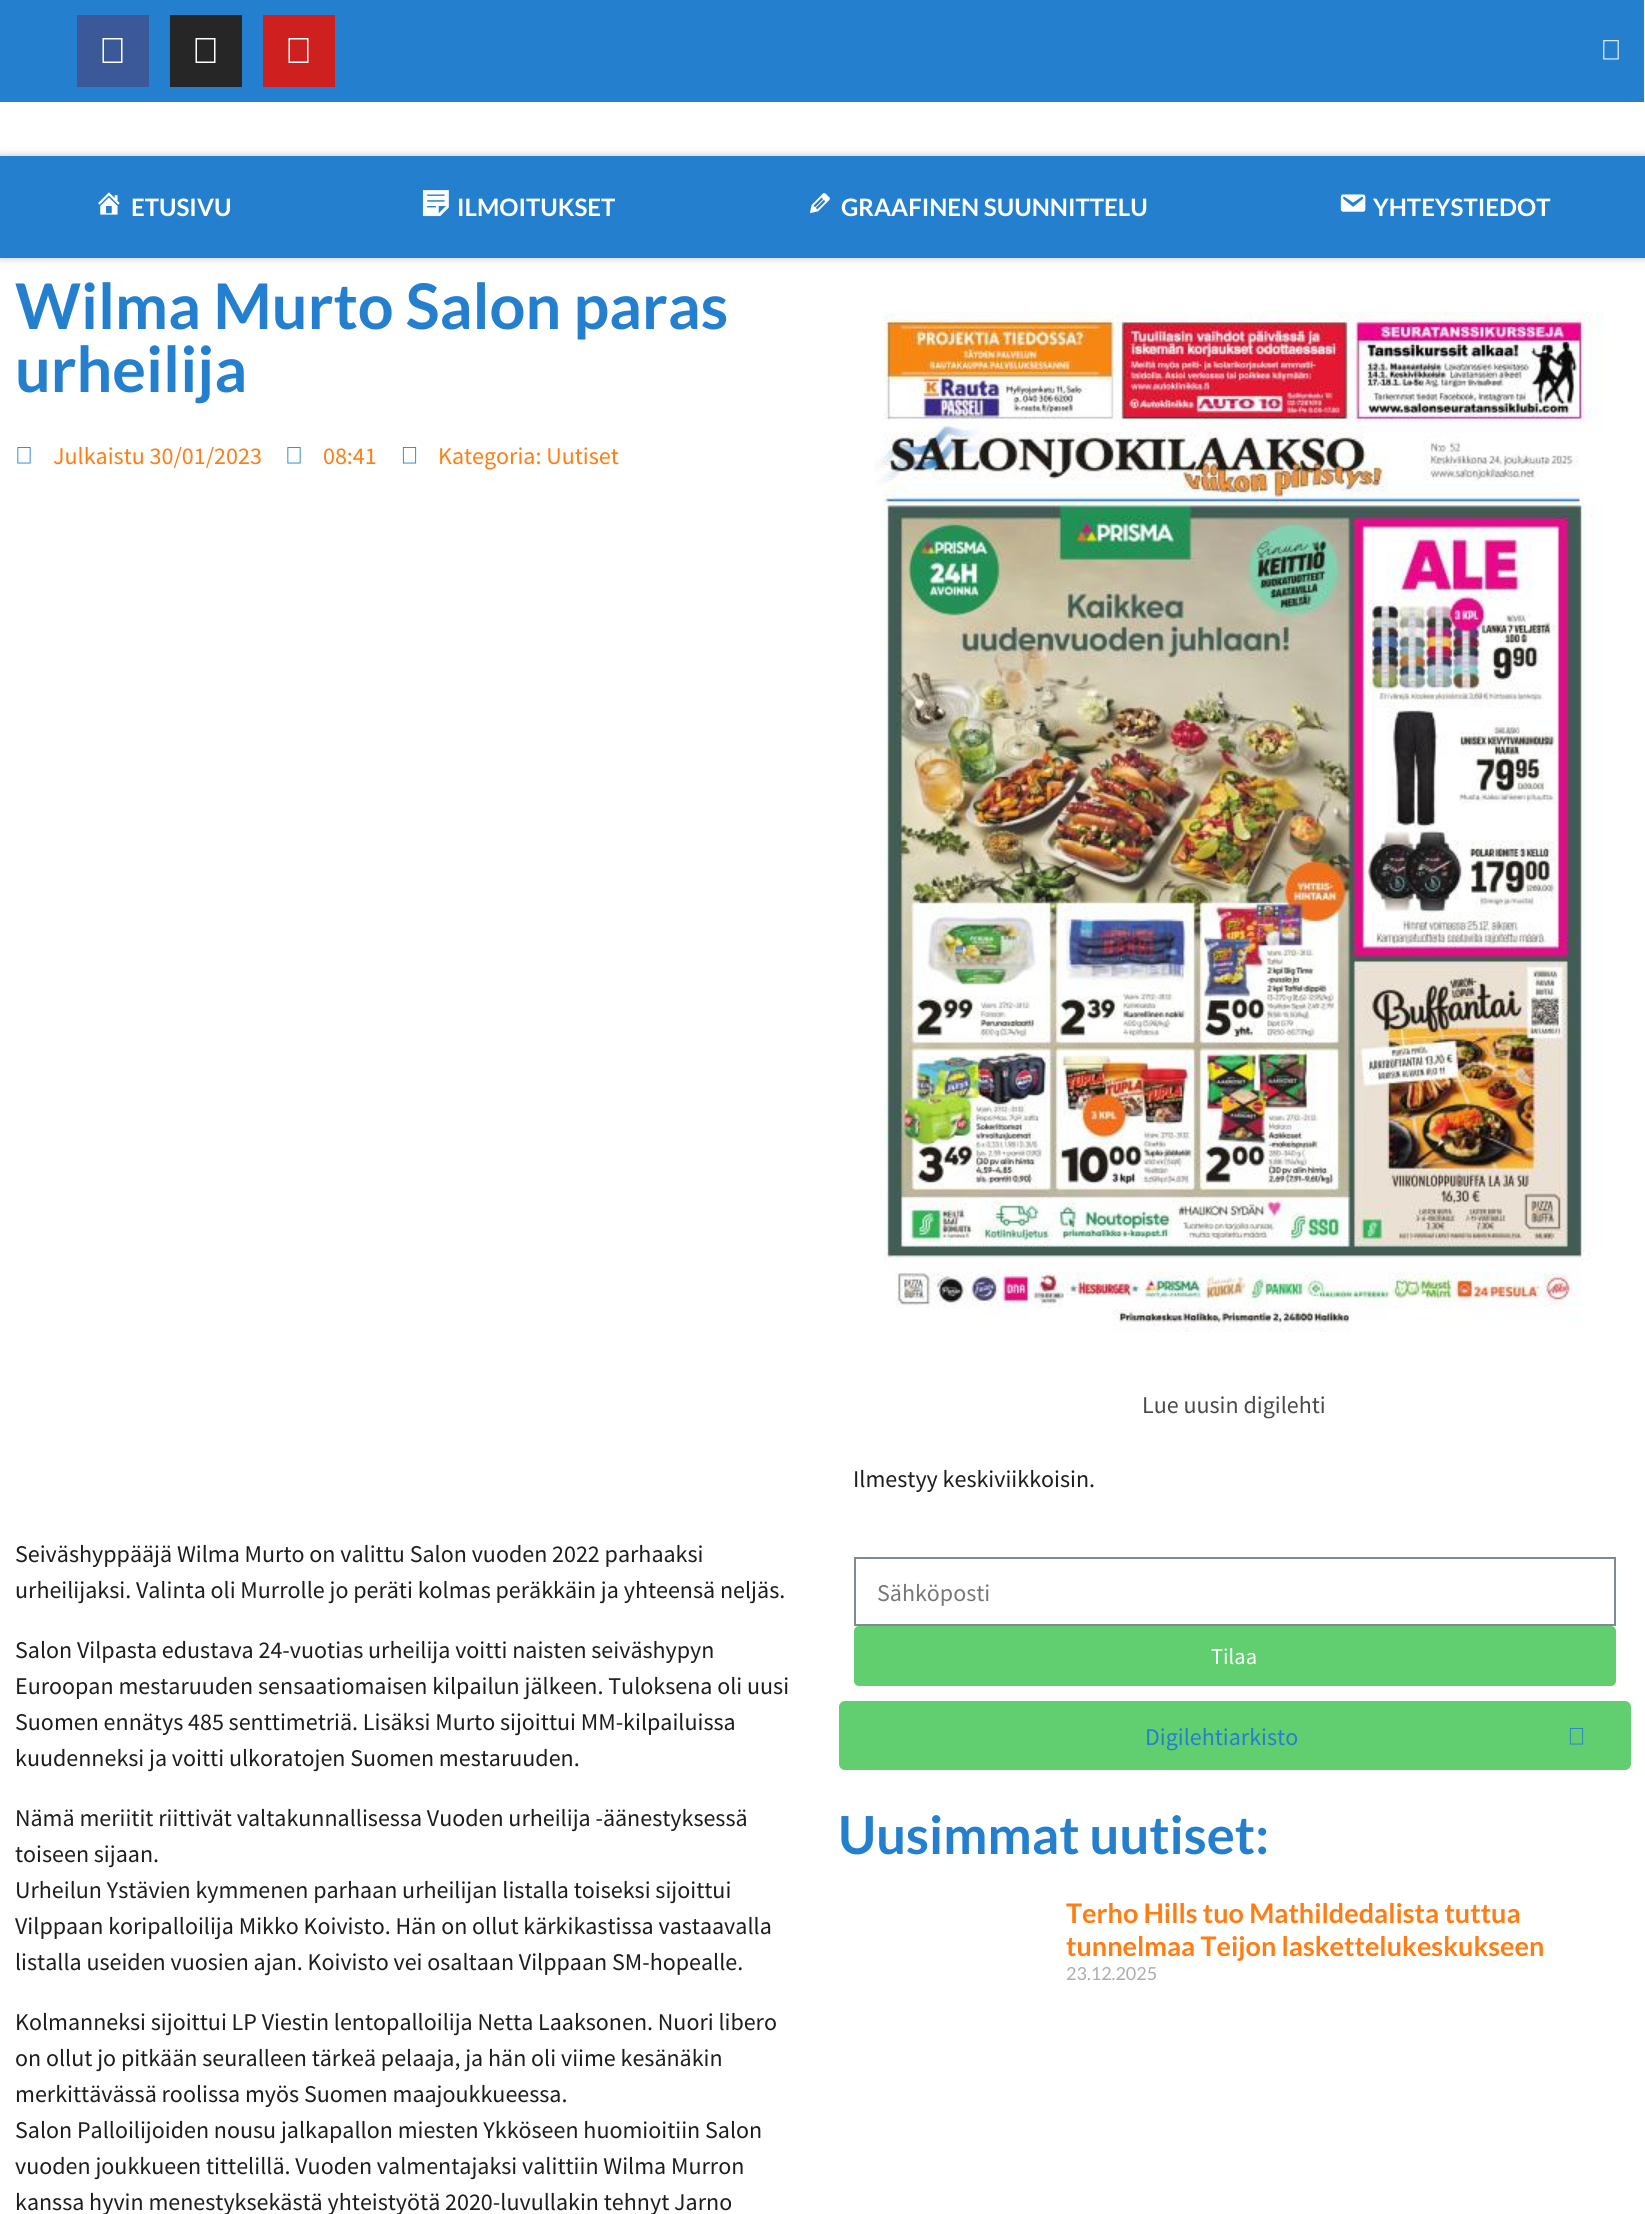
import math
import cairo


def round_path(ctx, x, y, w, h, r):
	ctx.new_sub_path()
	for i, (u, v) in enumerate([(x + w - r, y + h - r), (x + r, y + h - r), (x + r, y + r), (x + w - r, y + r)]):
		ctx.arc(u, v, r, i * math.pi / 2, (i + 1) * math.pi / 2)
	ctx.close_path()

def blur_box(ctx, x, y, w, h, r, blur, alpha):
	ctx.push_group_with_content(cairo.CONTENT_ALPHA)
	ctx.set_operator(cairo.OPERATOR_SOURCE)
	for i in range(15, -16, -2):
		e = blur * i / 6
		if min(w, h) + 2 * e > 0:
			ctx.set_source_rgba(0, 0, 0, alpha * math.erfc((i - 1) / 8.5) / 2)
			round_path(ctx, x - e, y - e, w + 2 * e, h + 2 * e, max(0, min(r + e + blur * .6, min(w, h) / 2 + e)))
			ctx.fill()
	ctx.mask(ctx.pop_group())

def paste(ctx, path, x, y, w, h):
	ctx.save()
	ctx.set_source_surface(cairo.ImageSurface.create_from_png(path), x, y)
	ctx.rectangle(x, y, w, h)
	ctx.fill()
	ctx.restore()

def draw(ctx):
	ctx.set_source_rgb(0.949, 0.949, 0.949)
	ctx.paint()
	ctx.set_source_rgb(0.141, 0.502, 0.812)
	ctx.rectangle(0, 0, 1644, 102)
	ctx.fill()
	ctx.set_source_rgb(0.231, 0.349, 0.596)
	ctx.rectangle(77, 15, 72, 72)
	ctx.fill()
	ctx.set_source_rgb(1, 1, 1)
	ctx.new_path()
	ctx.move_to(102.5, 38)
	ctx.line_to(122.5, 38)
	ctx.line_to(122.5, 63)
	ctx.line_to(102.5, 63)
	ctx.close_path()
	ctx.move_to(104, 39.5)
	ctx.line_to(104, 61.5)
	ctx.line_to(121, 61.5)
	ctx.line_to(121, 39.5)
	ctx.close_path()
	ctx.fill()
	ctx.set_source_rgb(0.149, 0.149, 0.149)
	ctx.rectangle(170, 15, 72, 72)
	ctx.fill()
	ctx.set_source_rgb(1, 1, 1)
	ctx.new_path()
	ctx.move_to(195.5, 38)
	ctx.line_to(215.5, 38)
	ctx.line_to(215.5, 63)
	ctx.line_to(195.5, 63)
	ctx.close_path()
	ctx.move_to(197, 39.5)
	ctx.line_to(197, 61.5)
	ctx.line_to(214, 61.5)
	ctx.line_to(214, 39.5)
	ctx.close_path()
	ctx.fill()
	ctx.set_source_rgb(0.804, 0.125, 0.122)
	ctx.rectangle(263, 15, 72, 72)
	ctx.fill()
	ctx.set_source_rgb(1, 1, 1)
	ctx.new_path()
	ctx.move_to(288.5, 38)
	ctx.line_to(308.5, 38)
	ctx.line_to(308.5, 63)
	ctx.line_to(288.5, 63)
	ctx.close_path()
	ctx.move_to(290, 39.5)
	ctx.line_to(290, 61.5)
	ctx.line_to(307, 61.5)
	ctx.line_to(307, 39.5)
	ctx.close_path()
	ctx.fill()
	paste(ctx, 'media/1.png', 1603, 40, 16, 20)
	ctx.rectangle(0, 102, 1645, 54)
	ctx.fill()
	ctx.rectangle(0, 258, 1645, 1956)
	ctx.fill()
	ctx.set_source_rgb(0, 0, 0)
	blur_box(ctx, 0, 156, 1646, 102, 0, 4, 0.25)
	ctx.set_source_rgb(0.141, 0.502, 0.812)
	ctx.rectangle(0, 156, 1645, 102)
	ctx.fill()
	paste(ctx, 'media/2.png', 98, 192, 22, 23)
	ctx.select_font_face('Lato', cairo.FONT_SLANT_NORMAL, cairo.FONT_WEIGHT_BOLD)
	ctx.set_font_size(24)
	ctx.set_source_rgb(1, 1, 1)
	ctx.move_to(131, 216)
	ctx.show_text('ETUSIVU')
	paste(ctx, 'media/3.png', 422, 190, 27, 27)
	ctx.move_to(457, 216)
	ctx.show_text('ILMOITUKSET')
	paste(ctx, 'media/4.png', 809, 193, 21, 20)
	ctx.move_to(841, 216)
	ctx.show_text('GRAAFINEN SUUNNITTELU')
	paste(ctx, 'media/5.png', 1340, 194, 26, 18)
	ctx.move_to(1373, 216)
	ctx.show_text('YHTEYSTIEDOT')
	ctx.set_font_size(63)
	ctx.set_source_rgb(0.141, 0.502, 0.812)
	ctx.move_to(15, 329)
	ctx.show_text('Wilma Murto Salon paras')
	ctx.move_to(15, 392)
	ctx.show_text('urheilija')
	paste(ctx, 'media/6.png', 17, 447, 14, 17)
	ctx.select_font_face('Source Sans Pro')
	ctx.set_font_size(24)
	ctx.set_source_rgb(1, 0.49, 0.078)
	ctx.move_to(53, 464)
	ctx.show_text('Julkaistu 30/01/2023')
	paste(ctx, 'media/6.png', 287, 447, 14, 17)
	ctx.move_to(323, 464)
	ctx.show_text('08:41')
	paste(ctx, 'media/7.png', 402, 447, 15, 17)
	ctx.move_to(438, 464)
	ctx.show_text('Kategoria: Uutiset')
	ctx.set_source_rgb(0.114, 0.114, 0.114)
	for x, y, s in [
		(15, 1562, 'Seiväshyppääjä Wilma Murto on valittu Salon vuoden 2022 parhaaksi'),
		(15, 1598, 'urheilijaksi. Valinta oli Murrolle jo peräti kolmas peräkkäin ja yhteensä neljäs.'),
		(15, 1658, 'Salon Vilpasta edustava 24-vuotias urheilija voitti naisten seiväshypyn'),
		(15, 1694, 'Euroopan mestaruuden sensaatiomaisen kilpailun jälkeen. Tuloksena oli uusi'),
		(15, 1730, 'Suomen ennätys 485 senttimetriä. Lisäksi Murto sijoittui MM-kilpailuissa'),
		(15, 1766, 'kuudenneksi ja voitti ulkoratojen Suomen mestaruuden.'),
		(15, 1826, 'Nämä meriitit riittivät valtakunnallisessa Vuoden urheilija -äänestyksessä'),
		(15, 1862, 'toiseen sijaan.'),
		(15, 1898, 'Urheilun Ystävien kymmenen parhaan urheilijan listalla toiseksi sijoittui'),
		(15, 1934, 'Vilppaan koripalloilija Mikko Koivisto. Hän on ollut kärkikastissa vastaavalla'),
		(15, 1970, 'listalla useiden vuosien ajan. Koivisto vei osaltaan Vilppaan SM-hopealle.'),
		(15, 2030, 'Kolmanneksi sijoittui LP Viestin lentopalloilija Netta Laaksonen. Nuori libero'),
		(15, 2066, 'on ollut jo pitkään seuralleen tärkeä pelaaja, ja hän oli viime kesänäkin'),
		(15, 2102, 'merkittävässä roolissa myös Suomen maajoukkueessa.'),
		(15, 2138, 'Salon Palloilijoiden nousu jalkapallon miesten Ykköseen huomioitiin Salon'),
		(15, 2174, 'vuoden joukkueen tittelillä. Vuoden valmentajaksi valittiin Wilma Murron'),
		(15, 2210, 'kanssa hyvin menestyksekästä yhteistyötä 2020-luvullakin tehnyt Jarno'),
	]:
		ctx.move_to(x, y)
		ctx.show_text(s)
	paste(ctx, 'media/8.png', 874, 311, 729, 1021)
	ctx.set_source_rgb(0.29, 0.29, 0.29)
	ctx.move_to(1142, 1413)
	ctx.show_text('Lue uusin digilehti')
	ctx.set_source_rgb(0.114, 0.114, 0.114)
	ctx.move_to(853, 1487)
	ctx.show_text('Ilmestyy keskiviikkoisin.')
	ctx.rectangle(855, 1558, 760, 67)
	ctx.set_source_rgb(0.506, 0.541, 0.569)
	ctx.stroke()
	ctx.set_source_rgb(0.467, 0.467, 0.467)
	ctx.move_to(877, 1601)
	ctx.show_text('Sähköposti')
	ctx.set_source_rgb(0.38, 0.808, 0.439)
	round_path(ctx, 854, 1626, 762, 60, 5)
	ctx.fill()
	ctx.set_font_size(22.5)
	ctx.set_source_rgb(1, 1, 1)
	ctx.move_to(1211, 1664)
	ctx.show_text('Tilaa')
	ctx.set_source_rgb(0.38, 0.808, 0.439)
	round_path(ctx, 839, 1701, 792, 69, 6)
	ctx.fill()
	ctx.set_font_size(24)
	ctx.set_source_rgb(0.141, 0.502, 0.812)
	ctx.move_to(1145, 1745)
	ctx.show_text('Digilehtiarkisto')
	paste(ctx, 'media/9.png', 1569, 1728, 15, 17)
	ctx.select_font_face('Lato', cairo.FONT_SLANT_NORMAL, cairo.FONT_WEIGHT_BOLD)
	ctx.set_font_size(52.5)
	ctx.move_to(838, 1854)
	ctx.show_text('Uusimmat uutiset:')
	ctx.set_font_size(27)
	ctx.set_source_rgb(1, 0.49, 0.078)
	ctx.move_to(1066, 1923)
	ctx.show_text('Terho Hills tuo Mathildedalista tuttua')
	ctx.move_to(1066, 1956)
	ctx.show_text('tunnelmaa Teijon laskettelukeskukseen')
	ctx.select_font_face('Lato')
	ctx.set_font_size(18)
	ctx.set_source_rgb(0.678, 0.678, 0.678)
	ctx.move_to(1066, 1980)
	ctx.show_text('23.12.2025')


surface = cairo.ImageSurface(cairo.FORMAT_RGB24, 1645, 2214)
ctx = cairo.Context(surface)
options = cairo.FontOptions()
options.set_hint_metrics(cairo.HINT_METRICS_OFF)
options.set_hint_style(cairo.HINT_STYLE_NONE)
ctx.set_font_options(options)
ctx.set_miter_limit(4)
draw(ctx)
surface.write_to_png('image.png')
